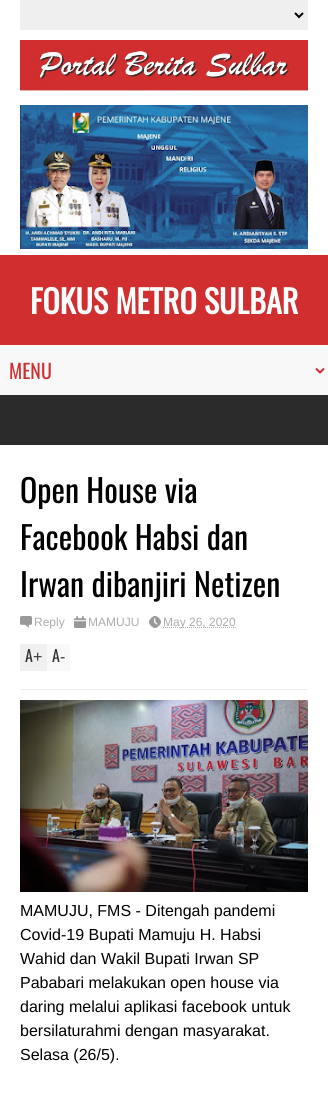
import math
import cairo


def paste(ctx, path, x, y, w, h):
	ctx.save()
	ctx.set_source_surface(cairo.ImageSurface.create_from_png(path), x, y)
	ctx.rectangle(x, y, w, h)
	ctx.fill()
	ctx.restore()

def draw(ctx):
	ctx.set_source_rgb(1, 1, 1)
	ctx.paint()
	ctx.set_source_rgb(0.937, 0.937, 0.937)
	ctx.rectangle(20, 0, 288, 30)
	ctx.fill()
	ctx.new_path()
	ctx.move_to(295, 13)
	ctx.line_to(299, 17)
	ctx.line_to(303, 13)
	ctx.set_source_rgb(0, 0, 0)
	ctx.stroke()
	paste(ctx, 'media/1.png', 20, 40, 288, 51)
	paste(ctx, 'media/2.png', 20, 105, 288, 144)
	ctx.set_source_rgb(0.82, 0.184, 0.184)
	ctx.rectangle(0, 255, 328, 90)
	ctx.fill()
	ctx.select_font_face('Oswald', cairo.FONT_SLANT_NORMAL, cairo.FONT_WEIGHT_BOLD)
	ctx.set_font_size(32)
	ctx.set_source_rgb(1, 1, 1)
	ctx.move_to(30, 314)
	ctx.show_text('FOKUS METRO SULBAR')
	ctx.set_source_rgb(0.969, 0.969, 0.969)
	ctx.rectangle(0, 345, 328, 50)
	ctx.fill()
	ctx.new_path()
	ctx.move_to(316, 368.5)
	ctx.line_to(320, 372.5)
	ctx.line_to(324, 368.5)
	ctx.set_source_rgb(0.82, 0.184, 0.184)
	ctx.stroke()
	ctx.select_font_face('Oswald')
	ctx.set_font_size(20)
	ctx.move_to(9, 379)
	ctx.show_text('MENU')
	ctx.set_source_rgb(0.169, 0.169, 0.169)
	ctx.rectangle(0, 395, 328, 50)
	ctx.fill()
	ctx.set_font_size(32)
	ctx.set_source_rgb(0, 0, 0)
	for x, y, s in [
		(20, 503, 'Open House via'),
		(20, 550, 'Facebook Habsi dan'),
		(20, 597, 'Irwan dibanjiri Netizen'),
	]:
		ctx.move_to(x, y)
		ctx.show_text(s)
	paste(ctx, 'media/3.png', 20, 616, 12, 12)
	ctx.select_font_face('Liberation Sans')
	ctx.set_font_size(12)
	ctx.set_source_rgb(0.678, 0.678, 0.678)
	ctx.move_to(34, 626)
	ctx.show_text('Reply')
	paste(ctx, 'media/4.png', 74, 616, 12, 12)
	ctx.move_to(88, 626)
	ctx.show_text('MAMUJU')
	paste(ctx, 'media/5.png', 149, 616, 12, 12)
	ctx.new_path()
	ctx.move_to(163, 627.5)
	ctx.line_to(235.5, 627.5)
	ctx.set_line_width(1)
	ctx.set_dash([1, 1])
	ctx.stroke()
	ctx.move_to(163, 626)
	ctx.show_text('May 26, 2020')
	ctx.set_source_rgb(0.941, 0.941, 0.941)
	ctx.rectangle(20, 644, 27, 27)
	ctx.fill()
	ctx.select_font_face('Oswald')
	ctx.set_font_size(16)
	ctx.set_source_rgb(0.2, 0.2, 0.2)
	ctx.move_to(25, 662)
	ctx.show_text('A')
	ctx.select_font_face('Liberation Sans')
	ctx.move_to(33, 662)
	ctx.show_text('+')
	ctx.set_source_rgb(0.973, 0.973, 0.973)
	ctx.rectangle(47, 644, 23, 27)
	ctx.fill()
	ctx.select_font_face('Oswald')
	ctx.set_source_rgb(0.2, 0.2, 0.2)
	ctx.move_to(52, 662)
	ctx.show_text('A')
	ctx.select_font_face('Liberation Sans')
	ctx.move_to(60, 662)
	ctx.show_text('-')
	ctx.set_source_rgb(0.933, 0.933, 0.933)
	ctx.rectangle(20, 689, 288, 1)
	ctx.fill()
	paste(ctx, 'media/6.png', 20, 700, 288, 192)
	ctx.set_source_rgb(0, 0, 0)
	for x, y, s in [
		(20, 916, 'MAMUJU, FMS - Ditengah pandemi'),
		(20, 940, 'Covid-19 Bupati Mamuju H. Habsi'),
		(20, 964, 'Wahid dan Wakil Bupati Irwan SP'),
		(20, 988, 'Pababari melakukan open house via'),
		(20, 1012, 'daring melalui aplikasi facebook untuk'),
		(20, 1036, 'bersilaturahmi dengan masyarakat.'),
		(20, 1060, 'Selasa (26/5).'),
	]:
		ctx.move_to(x, y)
		ctx.show_text(s)


surface = cairo.ImageSurface(cairo.FORMAT_RGB24, 328, 1104)
ctx = cairo.Context(surface)
options = cairo.FontOptions()
options.set_hint_metrics(cairo.HINT_METRICS_OFF)
options.set_hint_style(cairo.HINT_STYLE_NONE)
ctx.set_font_options(options)
ctx.set_miter_limit(4)
draw(ctx)
surface.write_to_png('image.png')
